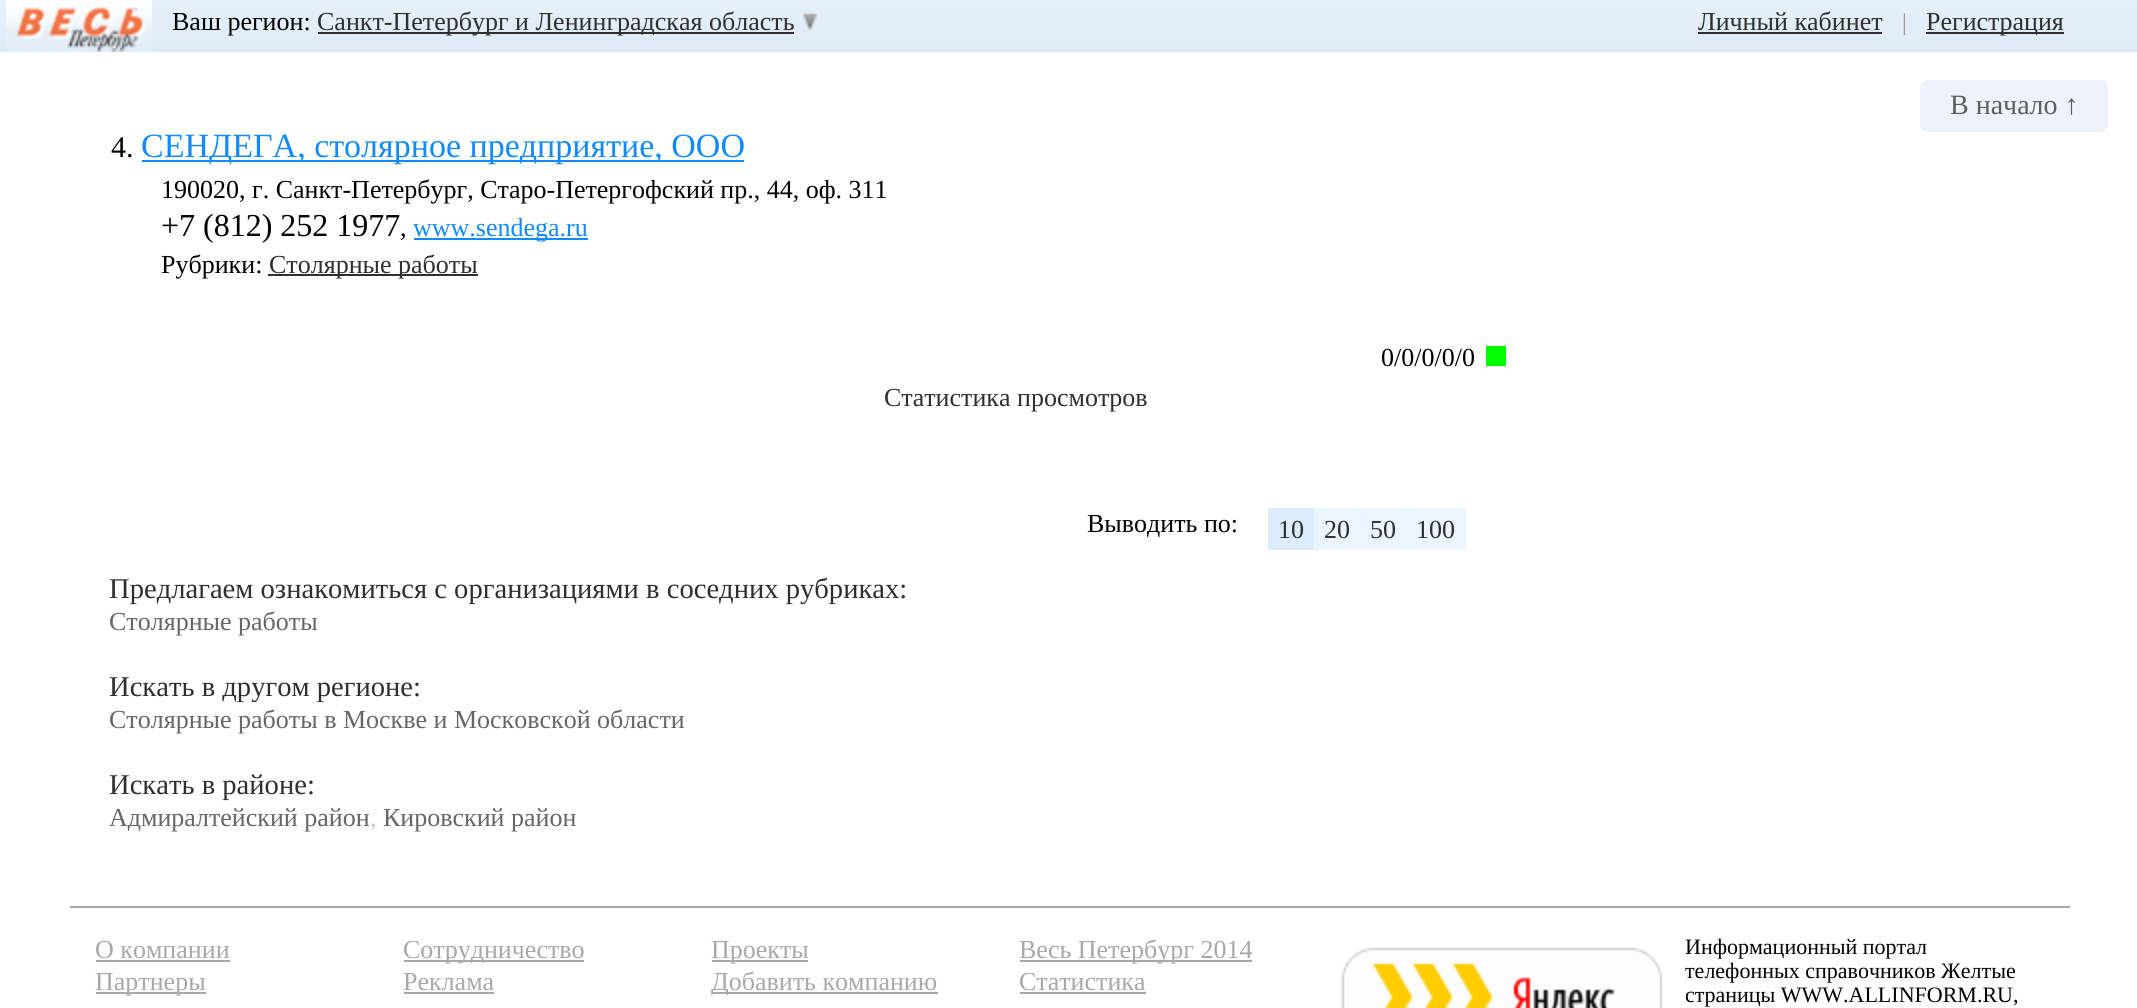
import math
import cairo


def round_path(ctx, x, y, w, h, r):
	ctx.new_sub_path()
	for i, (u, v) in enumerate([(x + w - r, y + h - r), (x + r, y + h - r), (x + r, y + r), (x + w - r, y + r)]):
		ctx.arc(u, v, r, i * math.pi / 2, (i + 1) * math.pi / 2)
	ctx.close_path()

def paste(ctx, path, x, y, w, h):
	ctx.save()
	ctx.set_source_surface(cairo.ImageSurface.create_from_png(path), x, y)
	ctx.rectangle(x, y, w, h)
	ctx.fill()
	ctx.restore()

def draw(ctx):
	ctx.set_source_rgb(1, 1, 1)
	ctx.paint()
	gradient = cairo.LinearGradient(1075, 0, 1075, 52)
	gradient.add_color_stop_rgba(0, 0.902, 0.941, 0.98, 1)
	gradient.add_color_stop_rgba(1, 0.871, 0.918, 0.969, 1)
	ctx.set_source(gradient)
	ctx.rectangle(0, 0, 2137, 52)
	ctx.fill()
	paste(ctx, 'media/1.png', 6, 0, 146, 52)
	ctx.select_font_face('Liberation Serif')
	ctx.set_font_size(26)
	ctx.set_source_rgb(0, 0, 0)
	ctx.move_to(172, 30)
	ctx.show_text('Ваш регион:')
	ctx.set_source_rgb(0.184, 0.184, 0.184)
	ctx.rectangle(318, 32, 476, 2)
	ctx.fill()
	ctx.move_to(317, 30)
	ctx.show_text('Санкт-Петербург и Ленинградская область')
	paste(ctx, 'media/2.png', 801, 13, 18, 18)
	ctx.move_to(1698, 30)
	ctx.show_text('Личный кабинет')
	ctx.rectangle(1698, 32, 184, 2)
	ctx.fill()
	ctx.set_font_size(24)
	ctx.set_source_rgb(0.6, 0.6, 0.6)
	ctx.move_to(1902, 30)
	ctx.show_text('|')
	ctx.set_source_rgb(0.184, 0.184, 0.184)
	ctx.rectangle(1926, 32, 138, 2)
	ctx.fill()
	ctx.set_font_size(26)
	ctx.move_to(1926, 30)
	ctx.show_text('Регистрация')
	ctx.set_source_rgb(0.922, 0.953, 0.984)
	round_path(ctx, 1920, 80, 188, 52, 8)
	ctx.fill()
	ctx.set_font_size(28)
	ctx.set_source_rgb(0.365, 0.365, 0.365)
	ctx.move_to(1950, 114)
	ctx.show_text('В начало ↑')
	ctx.set_font_size(30)
	ctx.set_source_rgb(0, 0, 0)
	ctx.move_to(111, 157)
	ctx.show_text('4.')
	ctx.set_source_rgb(0.071, 0.541, 0.984)
	ctx.rectangle(142, 160, 602, 2)
	ctx.fill()
	ctx.set_font_size(34)
	ctx.move_to(141, 157)
	ctx.show_text('СЕНДЕГА, столярное предприятие, ООО')
	ctx.set_font_size(26)
	ctx.set_source_rgb(0, 0, 0)
	ctx.move_to(161, 198)
	ctx.show_text('190020, г. Санкт-Петербург, Старо-Петергофский пр., 44, оф. 311')
	ctx.set_font_size(32)
	ctx.move_to(161, 236)
	ctx.show_text('+7 (812) 252 1977')
	ctx.set_font_size(26)
	ctx.move_to(400, 236)
	ctx.show_text(',')
	ctx.set_source_rgb(0.071, 0.541, 0.984)
	ctx.rectangle(414, 238, 174, 2)
	ctx.fill()
	ctx.move_to(413, 236)
	ctx.show_text('www.sendega.ru')
	ctx.set_source_rgb(0, 0, 0)
	ctx.move_to(161, 273)
	ctx.show_text('Рубрики:')
	ctx.set_source_rgb(0.184, 0.184, 0.184)
	ctx.rectangle(268, 274, 210, 2)
	ctx.fill()
	ctx.move_to(269, 273)
	ctx.show_text('Столярные работы')
	ctx.set_source_rgb(0, 0, 0)
	ctx.move_to(1381, 366)
	ctx.show_text('0/0/0/0/0')
	ctx.set_source_rgb(0, 1, 0)
	ctx.rectangle(1486, 346, 20, 20)
	ctx.fill()
	ctx.set_source_rgb(0.184, 0.184, 0.184)
	ctx.move_to(884, 406)
	ctx.show_text('Статистика просмотров')
	ctx.set_source_rgb(0, 0, 0)
	ctx.move_to(1087, 532)
	ctx.show_text('Выводить по:')
	ctx.set_source_rgb(0.863, 0.925, 0.984)
	ctx.rectangle(1268, 508, 46, 42)
	ctx.fill()
	ctx.set_source_rgb(0.184, 0.184, 0.184)
	ctx.move_to(1278, 538)
	ctx.show_text('10')
	ctx.set_source_rgb(0.922, 0.957, 0.992)
	ctx.rectangle(1314, 508, 152, 42)
	ctx.fill()
	ctx.set_source_rgb(0.184, 0.184, 0.184)
	for x, y, s in [
		(1324, 538, '20'),
		(1370, 538, '50'),
		(1416, 538, '100'),
	]:
		ctx.move_to(x, y)
		ctx.show_text(s)
	ctx.set_font_size(28.6)
	ctx.move_to(109, 598)
	ctx.show_text('Предлагаем ознакомиться с организациями в соседних рубриках:')
	ctx.set_font_size(26)
	ctx.set_source_rgb(0.4, 0.4, 0.4)
	ctx.move_to(109, 630)
	ctx.show_text('Столярные работы')
	ctx.set_font_size(28.6)
	ctx.set_source_rgb(0.184, 0.184, 0.184)
	ctx.move_to(109, 696)
	ctx.show_text('Искать в другом регионе:')
	ctx.set_font_size(26)
	ctx.set_source_rgb(0.4, 0.4, 0.4)
	ctx.move_to(109, 728)
	ctx.show_text('Столярные работы в Москве и Mосковской области')
	ctx.set_font_size(28.6)
	ctx.set_source_rgb(0.184, 0.184, 0.184)
	ctx.move_to(109, 794)
	ctx.show_text('Искать в районе:')
	ctx.set_font_size(26)
	ctx.set_source_rgb(0.4, 0.4, 0.4)
	ctx.move_to(109, 826)
	ctx.show_text('Адмиралтейский район')
	ctx.set_source_rgb(0.8, 0.8, 0.8)
	ctx.move_to(370, 826)
	ctx.show_text(',')
	ctx.set_source_rgb(0.4, 0.4, 0.4)
	ctx.move_to(383, 826)
	ctx.show_text('Кировский район')
	ctx.set_source_rgb(0.659, 0.659, 0.659)
	ctx.rectangle(70, 906, 2000, 2)
	ctx.fill()
	ctx.move_to(95, 958)
	ctx.show_text('О компании')
	ctx.rectangle(96, 960, 134, 2)
	ctx.fill()
	ctx.rectangle(96, 992, 110, 2)
	ctx.fill()
	ctx.move_to(95, 990)
	ctx.show_text('Партнеры')
	ctx.rectangle(404, 960, 180, 2)
	ctx.fill()
	ctx.move_to(403, 958)
	ctx.show_text('Сотрудничество')
	ctx.move_to(403, 990)
	ctx.show_text('Реклама')
	ctx.rectangle(404, 992, 90, 2)
	ctx.fill()
	ctx.rectangle(712, 960, 96, 2)
	ctx.fill()
	ctx.move_to(711, 958)
	ctx.show_text('Проекты')
	ctx.rectangle(712, 992, 226, 2)
	ctx.fill()
	ctx.move_to(711, 990)
	ctx.show_text('Добавить компанию')
	ctx.rectangle(1020, 960, 232, 2)
	ctx.fill()
	ctx.move_to(1019, 958)
	ctx.show_text('Весь Петербург 2014')
	ctx.move_to(1019, 990)
	ctx.show_text('Статистика')
	ctx.rectangle(1020, 992, 126, 2)
	ctx.fill()
	paste(ctx, 'media/3.png', 1341, 947, 322, 61)
	ctx.set_font_size(22)
	ctx.set_source_rgb(0, 0, 0)
	for x, y, s in [
		(1685, 954, 'Информационный портал'),
		(1685, 978, 'телефонных справочников Желтые'),
		(1685, 1002, 'страницы WWW.ALLINFORM.RU,'),
	]:
		ctx.move_to(x, y)
		ctx.show_text(s)


surface = cairo.ImageSurface(cairo.FORMAT_RGB24, 2137, 1008)
ctx = cairo.Context(surface)
options = cairo.FontOptions()
options.set_hint_metrics(cairo.HINT_METRICS_OFF)
options.set_hint_style(cairo.HINT_STYLE_NONE)
ctx.set_font_options(options)
ctx.set_miter_limit(4)
draw(ctx)
surface.write_to_png('image.png')
